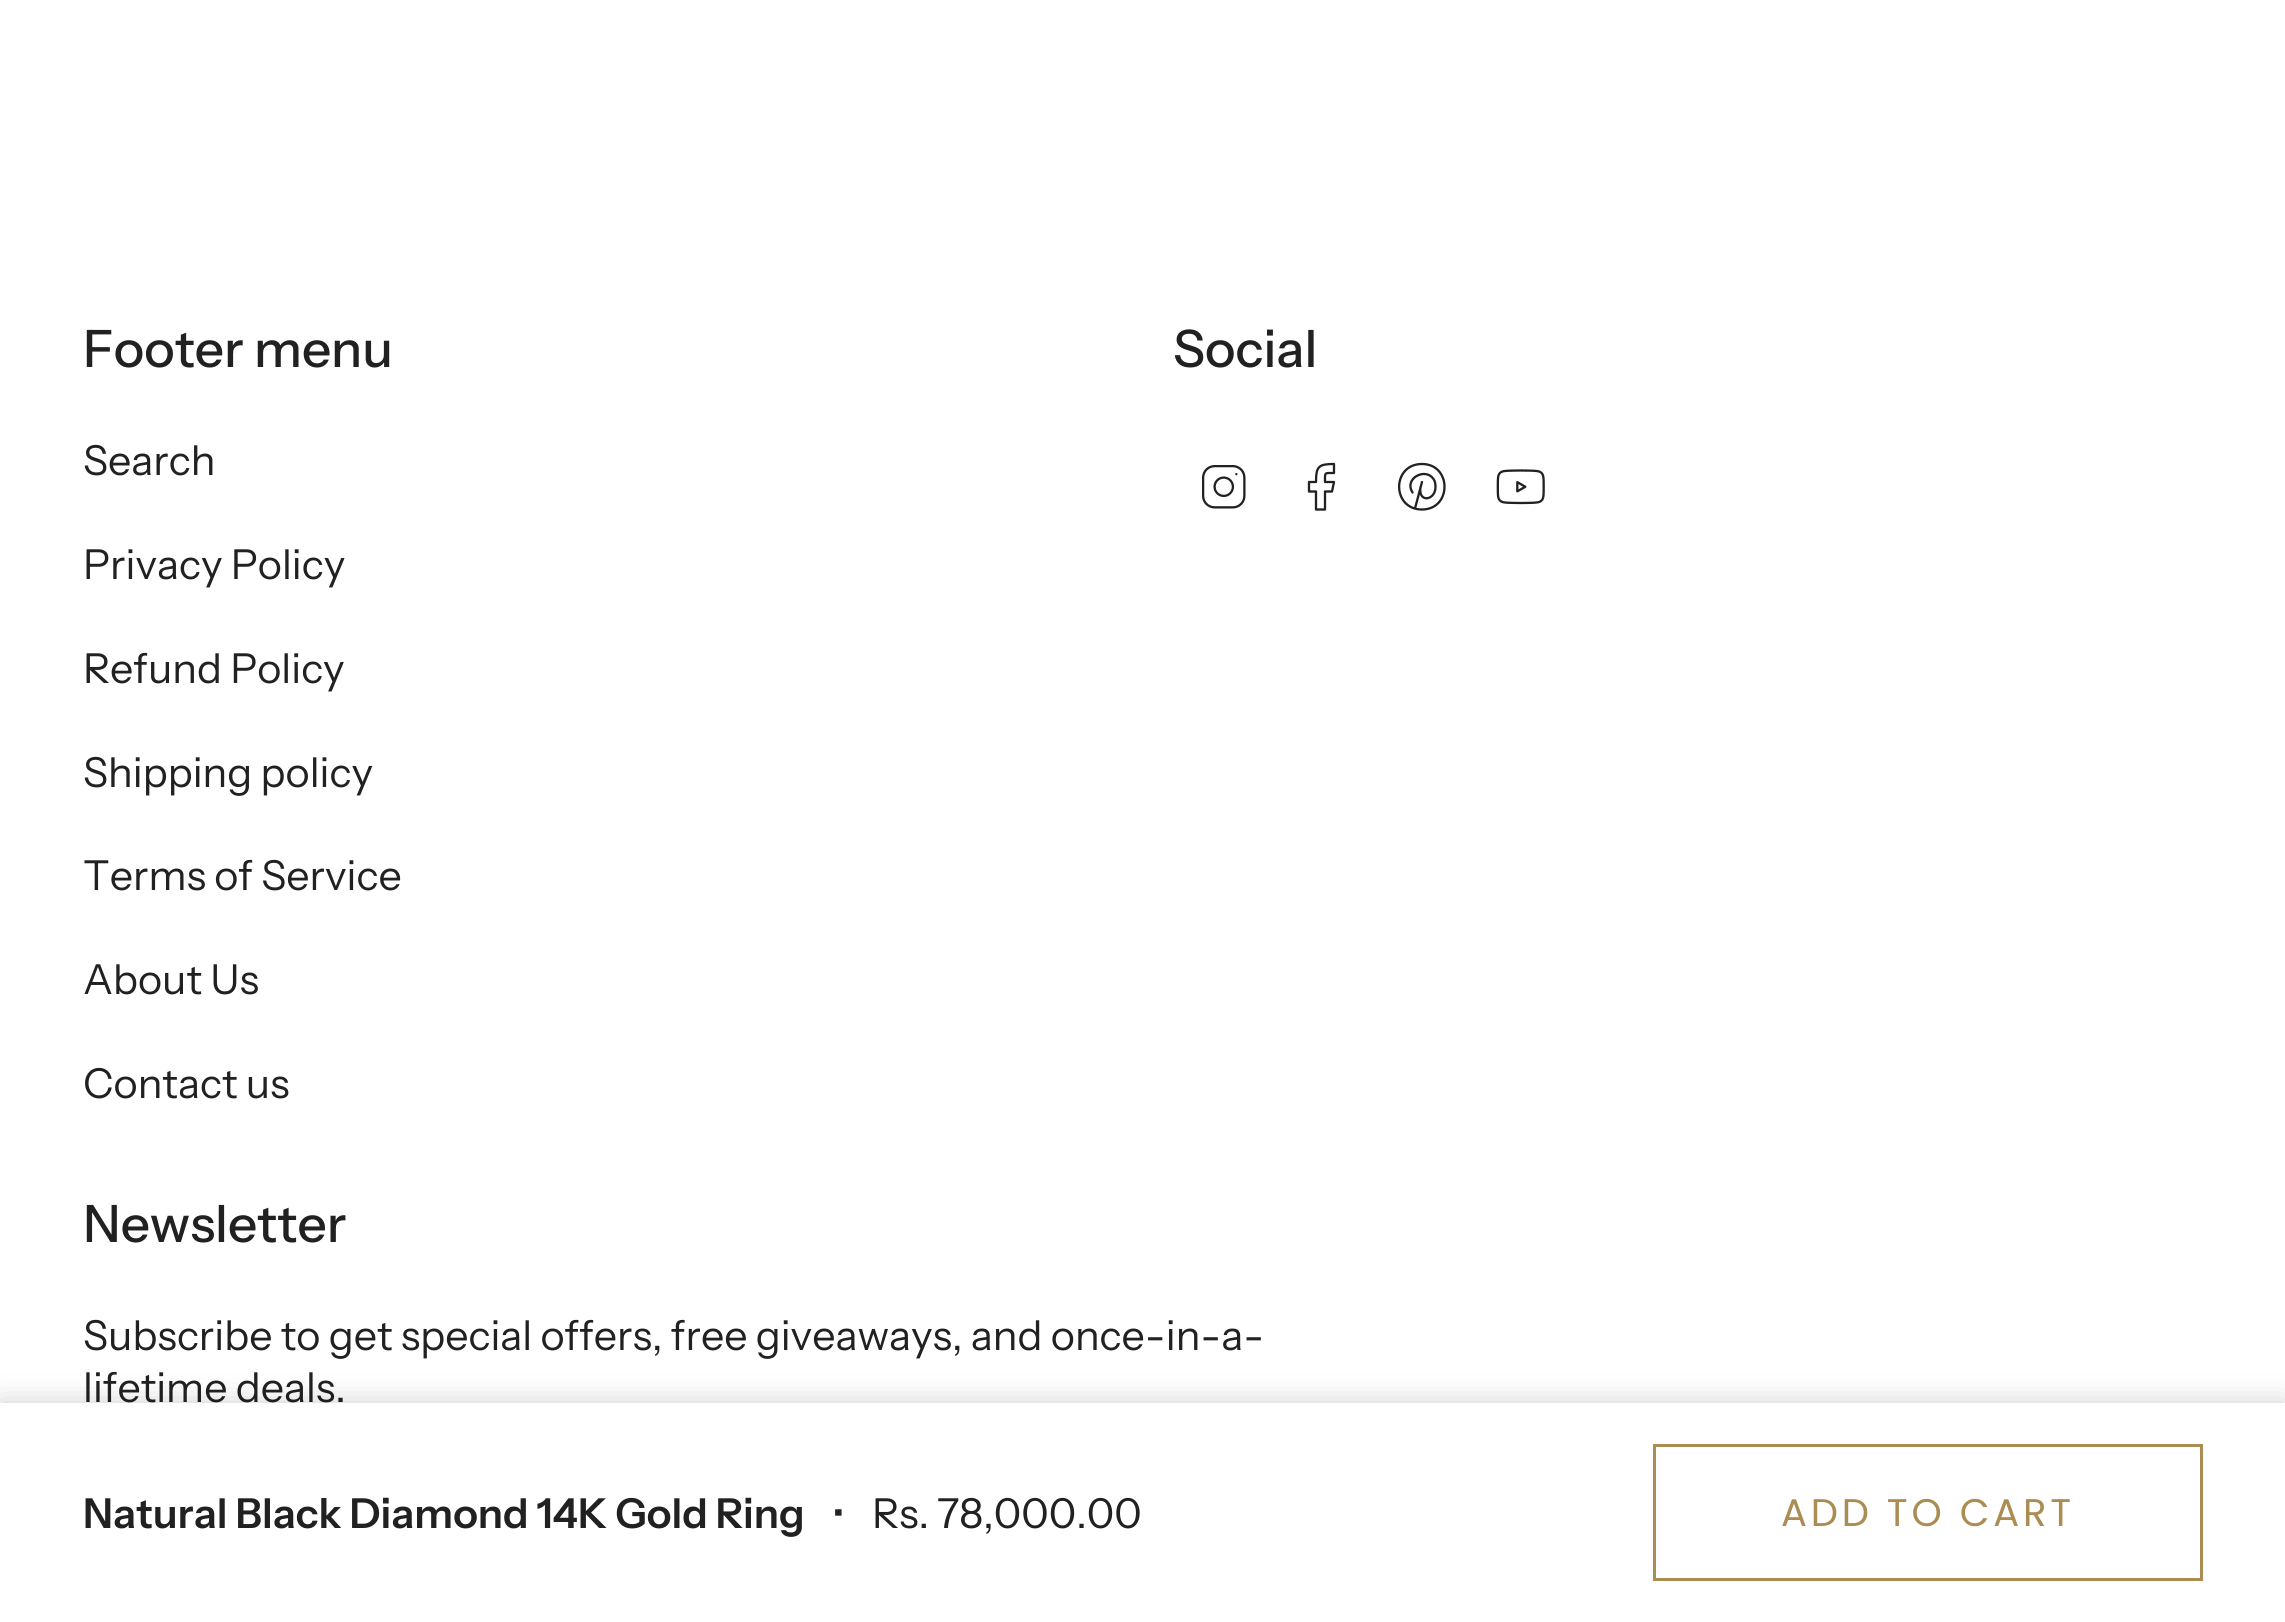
import math
import cairo


def write_spaced(ctx, x, y, s, letter, word):
	ctx.move_to(x, y)
	for ch in s:
		ctx.show_text(ch)
		ctx.rel_move_to(letter + word * (ch == ' '), 0)

def round_path(ctx, x, y, w, h, r):
	ctx.new_sub_path()
	for i, (u, v) in enumerate([(x + w - r, y + h - r), (x + r, y + h - r), (x + r, y + r), (x + w - r, y + r)]):
		ctx.arc(u, v, r, i * math.pi / 2, (i + 1) * math.pi / 2)
	ctx.close_path()

def blur_box(ctx, x, y, w, h, r, blur, alpha):
	ctx.push_group_with_content(cairo.CONTENT_ALPHA)
	ctx.set_operator(cairo.OPERATOR_SOURCE)
	for i in range(15, -16, -2):
		e = blur * i / 6
		if min(w, h) + 2 * e > 0:
			ctx.set_source_rgba(0, 0, 0, alpha * math.erfc((i - 1) / 8.5) / 2)
			round_path(ctx, x - e, y - e, w + 2 * e, h + 2 * e, max(0, min(r + e + blur * .6, min(w, h) / 2 + e)))
			ctx.fill()
	ctx.mask(ctx.pop_group())

def paste(ctx, path, x, y, w, h):
	ctx.save()
	ctx.set_source_surface(cairo.ImageSurface.create_from_png(path), x, y)
	ctx.rectangle(x, y, w, h)
	ctx.fill()
	ctx.restore()

def draw(ctx):
	ctx.set_source_rgb(1, 1, 1)
	ctx.paint()
	ctx.select_font_face('Instrument Sans Medium')
	ctx.set_font_size(51.5)
	ctx.set_source_rgb(0.129, 0.129, 0.129)
	ctx.move_to(83, 367)
	ctx.show_text('Footer menu')
	ctx.select_font_face('Instrument Sans')
	ctx.set_font_size(41.25)
	for x, y, s in [
		(83, 475, 'Search'),
		(83, 579, 'Privacy Policy'),
		(83, 683, 'Refund Policy'),
		(83, 787, 'Shipping policy'),
		(83, 890, 'Terms of Service'),
		(83, 994, 'About Us'),
		(83, 1098, 'Contact us'),
	]:
		ctx.move_to(x, y)
		ctx.show_text(s)
	ctx.select_font_face('Instrument Sans Medium')
	ctx.set_font_size(51.5)
	ctx.move_to(1173, 367)
	ctx.show_text('Social')
	paste(ctx, 'media/1.png', 1201, 465, 45, 44)
	ctx.new_path()
	ctx.move_to(1334, 464)
	ctx.curve_to(1318.5, 464, 1316, 466.5, 1316, 482)
	ctx.line_to(1309, 482)
	ctx.line_to(1309, 491.5)
	ctx.line_to(1316, 491.5)
	ctx.line_to(1316, 509.5)
	ctx.line_to(1325, 509.5)
	ctx.line_to(1325, 491.5)
	ctx.line_to(1332, 491.5)
	ctx.line_to(1334, 482)
	ctx.line_to(1325, 482)
	ctx.curve_to(1325, 472, 1324, 473, 1334, 473)
	ctx.close_path()
	ctx.set_line_width(2.3)
	ctx.set_line_cap(cairo.LINE_CAP_ROUND)
	ctx.set_line_join(cairo.LINE_JOIN_ROUND)
	ctx.stroke()
	ctx.new_path()
	ctx.move_to(1412.5, 492.5)
	ctx.curve_to(1403.5, 478.5, 1425.5, 467, 1433.5, 479)
	ctx.curve_to(1435, 481, 1435.5, 484, 1435.5, 487)
	ctx.curve_to(1435.5, 500.5, 1418, 503.5, 1420.5, 487)
	ctx.move_to(1422, 482)
	ctx.line_to(1415, 508.5)
	ctx.move_to(1422, 509.5)
	ctx.curve_to(1452, 509.5, 1452, 464, 1422, 464)
	ctx.curve_to(1391.5, 464, 1391.5, 509.5, 1422, 509.5)
	ctx.close_path()
	ctx.stroke()
	paste(ctx, 'media/2.png', 1496, 469, 49, 36)
	ctx.move_to(83, 1242)
	ctx.show_text('Newsletter')
	ctx.select_font_face('Instrument Sans')
	ctx.set_font_size(41.25)
	ctx.move_to(83, 1350)
	ctx.show_text('Subscribe to get special offers, free giveaways, and once-in-a-')
	ctx.move_to(83, 1402)
	ctx.show_text('lifetime deals.')
	ctx.set_source_rgb(0, 0, 0)
	blur_box(ctx, 0, 1403, 2285, 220, 0, 14, 0.2)
	ctx.set_source_rgb(1, 1, 1)
	ctx.rectangle(0, 1403, 2285, 219)
	ctx.fill()
	ctx.select_font_face('Instrument Sans SemiBold')
	ctx.set_source_rgb(0.129, 0.129, 0.129)
	ctx.move_to(83, 1528)
	ctx.show_text('Natural Black Diamond 14K Gold Ring')
	ctx.select_font_face('Instrument Sans')
	ctx.move_to(832, 1528)
	ctx.show_text('•')
	ctx.move_to(872, 1528)
	ctx.show_text('Rs. 78,000.00')
	ctx.rectangle(1654.5, 1445.5, 547, 134)
	ctx.set_source_rgb(0.671, 0.549, 0.322)
	ctx.set_line_width(3)
	ctx.set_line_cap(cairo.LINE_CAP_BUTT)
	ctx.set_line_join(cairo.LINE_JOIN_MITER)
	ctx.stroke()
	ctx.select_font_face('Poppins')
	ctx.set_font_size(38.5)
	write_spaced(ctx, 1781, 1526, 'ADD TO CART', 3.8, 0)


surface = cairo.ImageSurface(cairo.FORMAT_RGB24, 2285, 1622)
ctx = cairo.Context(surface)
options = cairo.FontOptions()
options.set_hint_metrics(cairo.HINT_METRICS_OFF)
options.set_hint_style(cairo.HINT_STYLE_NONE)
ctx.set_font_options(options)
ctx.set_miter_limit(4)
draw(ctx)
surface.write_to_png('image.png')
